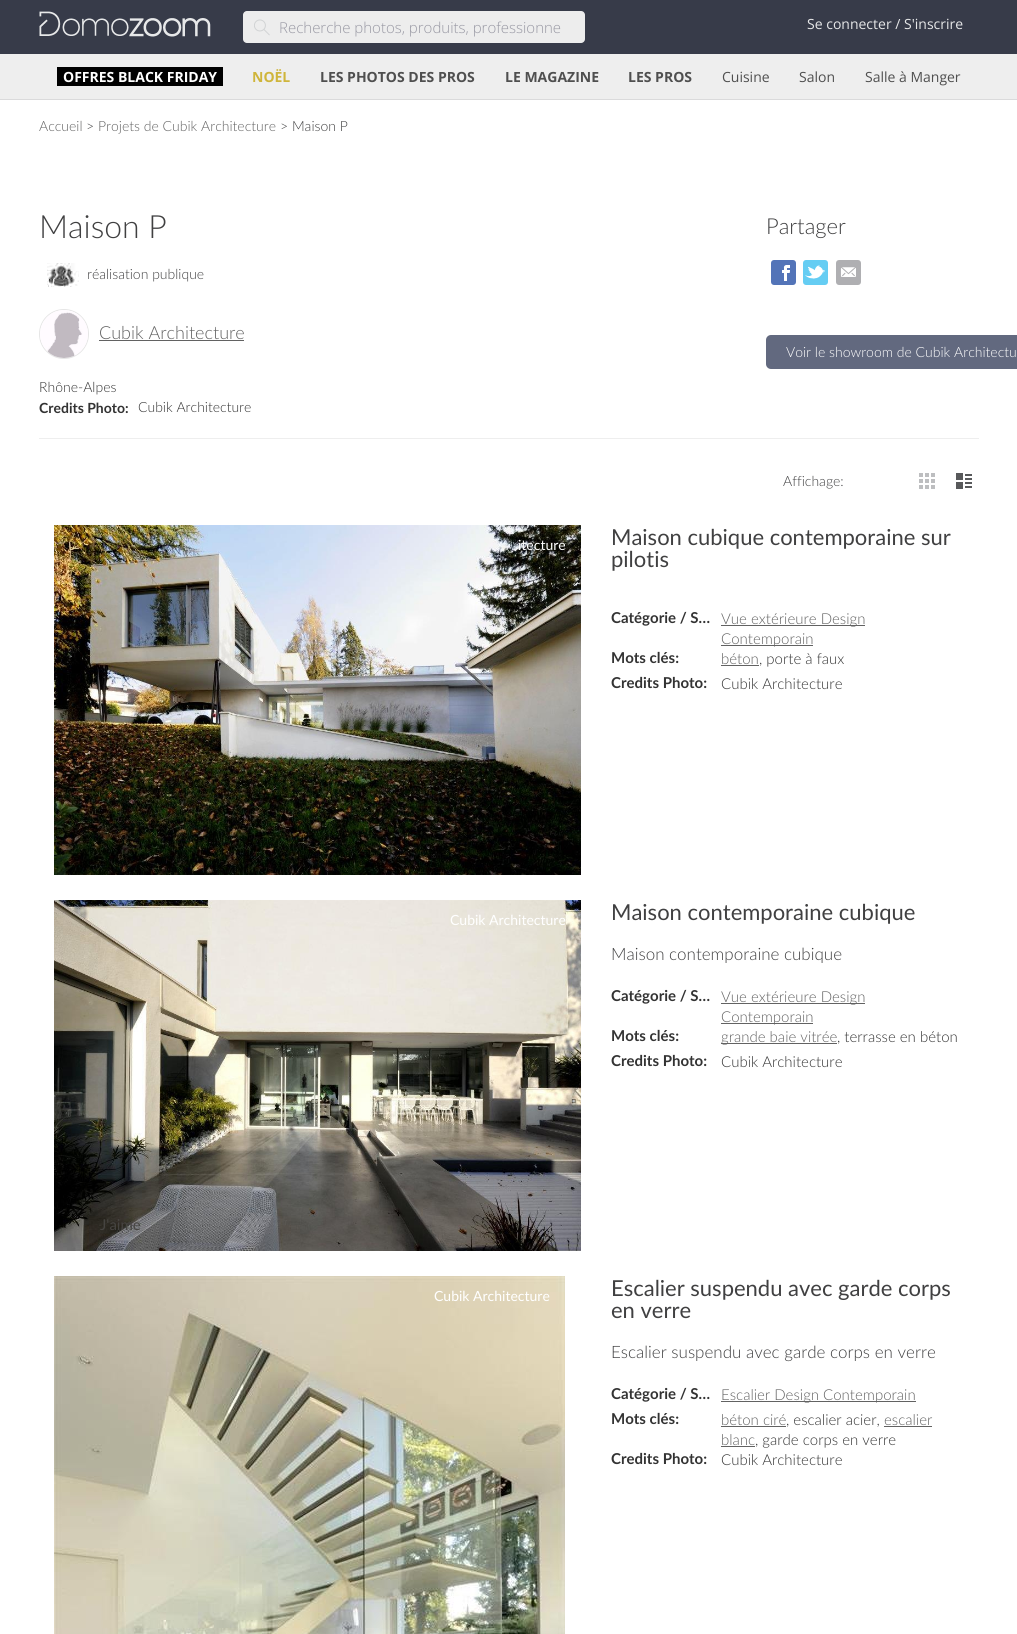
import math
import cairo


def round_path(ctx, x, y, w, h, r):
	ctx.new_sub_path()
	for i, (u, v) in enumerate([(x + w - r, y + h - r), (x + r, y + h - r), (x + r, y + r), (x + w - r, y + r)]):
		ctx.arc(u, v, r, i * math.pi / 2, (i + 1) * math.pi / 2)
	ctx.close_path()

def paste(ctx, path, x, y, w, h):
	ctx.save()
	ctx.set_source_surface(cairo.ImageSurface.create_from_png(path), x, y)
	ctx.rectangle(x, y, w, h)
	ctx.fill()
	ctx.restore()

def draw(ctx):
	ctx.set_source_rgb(1, 1, 1)
	ctx.paint()
	ctx.set_source_rgb(0.216, 0.231, 0.286)
	ctx.rectangle(0, 0, 1017, 54)
	ctx.fill()
	paste(ctx, 'media/1.png', 39, 11, 172, 26)
	ctx.set_source_rgb(0.929, 0.929, 0.929)
	round_path(ctx, 243, 11, 342, 32, 4)
	ctx.fill()
	paste(ctx, 'media/2.png', 254, 19, 16, 17)
	ctx.select_font_face('Open Sans Light')
	ctx.set_font_size(15)
	ctx.set_source_rgb(0.6, 0.6, 0.643)
	ctx.move_to(279, 33)
	ctx.show_text('Recherche photos, produits, professionne')
	ctx.select_font_face('Open Sans')
	ctx.set_font_size(14)
	ctx.set_source_rgb(0.902, 0.906, 0.91)
	ctx.move_to(807, 29)
	ctx.show_text('Se connecter / S\'inscrire')
	ctx.set_source_rgb(0.933, 0.933, 0.933)
	ctx.rectangle(0, 54, 1017, 45)
	ctx.fill()
	ctx.set_source_rgb(0.855, 0.855, 0.859)
	ctx.rectangle(0, 99, 1017, 1)
	ctx.fill()
	ctx.set_source_rgb(0, 0, 0)
	ctx.rectangle(57, 67, 166, 19)
	ctx.fill()
	ctx.select_font_face('Open Sans', cairo.FONT_SLANT_NORMAL, cairo.FONT_WEIGHT_BOLD)
	ctx.set_source_rgb(1, 1, 1)
	ctx.move_to(63, 82)
	ctx.show_text('OFFRES BLACK FRIDAY')
	ctx.set_source_rgb(0.812, 0.71, 0.231)
	ctx.move_to(252, 82)
	ctx.show_text('NOËL')
	ctx.set_source_rgb(0.31, 0.31, 0.31)
	for x, y, s in [
		(320, 82, 'LES PHOTOS DES PROS'),
		(505, 82, 'LE MAGAZINE'),
		(628, 82, 'LES PROS'),
	]:
		ctx.move_to(x, y)
		ctx.show_text(s)
	ctx.select_font_face('Open Sans')
	for x, y, s in [
		(722, 82, 'Cuisine'),
		(799, 82, 'Salon'),
		(865, 82, 'Salle à Manger'),
	]:
		ctx.move_to(x, y)
		ctx.show_text(s)
	ctx.select_font_face('Lato Light')
	ctx.set_source_rgb(0.384, 0.384, 0.384)
	ctx.move_to(39, 131)
	ctx.show_text('Accueil')
	ctx.set_source_rgb(0.251, 0.251, 0.255)
	ctx.move_to(86, 131)
	ctx.show_text('>')
	ctx.set_source_rgb(0.384, 0.384, 0.384)
	ctx.move_to(98, 131)
	ctx.show_text('Projets de Cubik Architecture')
	ctx.set_source_rgb(0.251, 0.251, 0.255)
	ctx.move_to(280, 131)
	ctx.show_text('> Maison P')
	ctx.set_font_size(32)
	ctx.move_to(39, 238)
	ctx.show_text('Maison P')
	paste(ctx, 'media/3.png', 47, 263, 32, 24)
	ctx.set_font_size(14)
	ctx.move_to(87, 279)
	ctx.show_text('réalisation publique')
	ctx.new_path()
	ctx.arc(64, 334, 24.5, 0, 2 * math.pi)
	ctx.set_source_rgb(0.898, 0.898, 0.898)
	ctx.set_line_width(1)
	ctx.stroke()
	paste(ctx, 'media/4.png', 40, 310, 48, 48)
	ctx.set_font_size(18)
	ctx.set_source_rgb(0.384, 0.384, 0.384)
	ctx.move_to(99, 339)
	ctx.show_text('Cubik Architecture')
	ctx.rectangle(99, 340, 145, 1)
	ctx.fill()
	ctx.set_font_size(14)
	ctx.set_source_rgb(0.2, 0.2, 0.2)
	ctx.move_to(39, 392)
	ctx.show_text('Rhône-Alpes')
	ctx.select_font_face('Lato', cairo.FONT_SLANT_NORMAL, cairo.FONT_WEIGHT_BOLD)
	ctx.move_to(39, 413)
	ctx.show_text('Credits Photo:')
	ctx.select_font_face('Lato Light')
	ctx.move_to(138, 412)
	ctx.show_text('Cubik Architecture')
	ctx.set_font_size(22)
	ctx.set_source_rgb(0.251, 0.251, 0.255)
	ctx.move_to(766, 234)
	ctx.show_text('Partager')
	ctx.set_source_rgb(0.325, 0.455, 0.722)
	round_path(ctx, 771, 260, 25, 25, 3)
	ctx.fill()
	paste(ctx, 'media/5.png', 782, 265, 8, 16)
	ctx.set_source_rgb(0.396, 0.804, 0.953)
	round_path(ctx, 803, 260, 25, 25, 3)
	ctx.fill()
	paste(ctx, 'media/6.png', 805, 265, 20, 14)
	ctx.set_source_rgb(0.686, 0.686, 0.698)
	round_path(ctx, 836, 260, 25, 25, 3)
	ctx.fill()
	paste(ctx, 'media/7.png', 840, 267, 16, 10)
	ctx.set_source_rgb(0.384, 0.412, 0.498)
	round_path(ctx, 766, 335, 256, 34, 5)
	ctx.fill()
	ctx.set_font_size(14)
	ctx.set_source_rgb(1, 1, 1)
	ctx.move_to(786, 357)
	ctx.show_text('Voir le showroom de Cubik Architectu')
	ctx.set_source_rgb(0.933, 0.933, 0.933)
	ctx.rectangle(39, 438, 940, 1)
	ctx.fill()
	ctx.set_source_rgb(0.251, 0.251, 0.255)
	ctx.move_to(783, 486)
	ctx.show_text('Affichage:')
	paste(ctx, 'media/8.png', 919, 473, 16, 16)
	paste(ctx, 'media/9.png', 956, 473, 16, 16)
	paste(ctx, 'media/10.png', 54, 525, 527, 350)
	ctx.select_font_face('Lato')
	ctx.set_source_rgb(1, 1, 1)
	ctx.move_to(518, 550)
	ctx.show_text('itecture')
	ctx.set_font_size(22)
	ctx.set_source_rgb(0.251, 0.251, 0.255)
	ctx.move_to(611, 545)
	ctx.show_text('Maison cubique contemporaine sur')
	ctx.move_to(611, 567)
	ctx.show_text('pilotis')
	ctx.select_font_face('Lato', cairo.FONT_SLANT_NORMAL, cairo.FONT_WEIGHT_BOLD)
	ctx.set_font_size(15)
	ctx.set_source_rgb(0.2, 0.2, 0.2)
	ctx.move_to(611, 623)
	ctx.show_text('Catégorie / S…')
	ctx.set_source_rgb(0.384, 0.384, 0.384)
	ctx.rectangle(721, 625, 144, 1)
	ctx.fill()
	ctx.select_font_face('Lato Light')
	ctx.move_to(721, 624)
	ctx.show_text('Vue extérieure Design')
	ctx.rectangle(721, 645, 92, 1)
	ctx.fill()
	ctx.move_to(721, 644)
	ctx.show_text('Contemporain')
	ctx.select_font_face('Lato', cairo.FONT_SLANT_NORMAL, cairo.FONT_WEIGHT_BOLD)
	ctx.set_source_rgb(0.2, 0.2, 0.2)
	ctx.move_to(611, 663)
	ctx.show_text('Mots clés:')
	ctx.select_font_face('Lato Light')
	ctx.set_source_rgb(0.384, 0.384, 0.384)
	ctx.move_to(721, 664)
	ctx.show_text('béton')
	ctx.rectangle(721, 665, 38, 1)
	ctx.fill()
	ctx.set_source_rgb(0.2, 0.2, 0.2)
	ctx.move_to(759, 664)
	ctx.show_text(', porte à faux')
	ctx.select_font_face('Lato', cairo.FONT_SLANT_NORMAL, cairo.FONT_WEIGHT_BOLD)
	ctx.move_to(611, 688)
	ctx.show_text('Credits Photo:')
	ctx.select_font_face('Lato Light')
	ctx.move_to(721, 689)
	ctx.show_text('Cubik Architecture')
	paste(ctx, 'media/11.png', 54, 900, 527, 351)
	ctx.select_font_face('Lato')
	ctx.set_font_size(14)
	ctx.set_source_rgb(1, 1, 1)
	ctx.move_to(450, 925)
	ctx.show_text('Cubik Architecture')
	ctx.set_font_size(15)
	ctx.set_source_rgb(0.275, 0.267, 0.255)
	ctx.move_to(100, 1230)
	ctx.show_text('J\'aime')
	ctx.set_font_size(22)
	ctx.set_source_rgb(0.251, 0.251, 0.255)
	ctx.move_to(611, 920)
	ctx.show_text('Maison contemporaine cubique')
	ctx.select_font_face('Lato Light')
	ctx.set_font_size(17)
	ctx.move_to(611, 960)
	ctx.show_text('Maison contemporaine cubique')
	ctx.select_font_face('Lato', cairo.FONT_SLANT_NORMAL, cairo.FONT_WEIGHT_BOLD)
	ctx.set_font_size(15)
	ctx.set_source_rgb(0.2, 0.2, 0.2)
	ctx.move_to(611, 1001)
	ctx.show_text('Catégorie / S…')
	ctx.set_source_rgb(0.384, 0.384, 0.384)
	ctx.rectangle(721, 1003, 144, 1)
	ctx.fill()
	ctx.select_font_face('Lato Light')
	ctx.move_to(721, 1002)
	ctx.show_text('Vue extérieure Design')
	ctx.rectangle(721, 1023, 92, 1)
	ctx.fill()
	ctx.move_to(721, 1022)
	ctx.show_text('Contemporain')
	ctx.select_font_face('Lato', cairo.FONT_SLANT_NORMAL, cairo.FONT_WEIGHT_BOLD)
	ctx.set_source_rgb(0.2, 0.2, 0.2)
	ctx.move_to(611, 1041)
	ctx.show_text('Mots clés:')
	ctx.set_source_rgb(0.384, 0.384, 0.384)
	ctx.rectangle(721, 1043, 116, 1)
	ctx.fill()
	ctx.select_font_face('Lato Light')
	ctx.move_to(721, 1042)
	ctx.show_text('grande baie vitrée')
	ctx.set_source_rgb(0.2, 0.2, 0.2)
	ctx.move_to(837, 1042)
	ctx.show_text(', terrasse en béton')
	ctx.select_font_face('Lato', cairo.FONT_SLANT_NORMAL, cairo.FONT_WEIGHT_BOLD)
	ctx.move_to(611, 1066)
	ctx.show_text('Credits Photo:')
	ctx.select_font_face('Lato Light')
	ctx.move_to(721, 1067)
	ctx.show_text('Cubik Architecture')
	paste(ctx, 'media/12.png', 54, 1276, 511, 358)
	ctx.select_font_face('Lato')
	ctx.set_font_size(14)
	ctx.set_source_rgb(1, 1, 1)
	ctx.move_to(434, 1301)
	ctx.show_text('Cubik Architecture')
	ctx.set_font_size(22)
	ctx.set_source_rgb(0.251, 0.251, 0.255)
	ctx.move_to(611, 1296)
	ctx.show_text('Escalier suspendu avec garde corps')
	ctx.move_to(611, 1318)
	ctx.show_text('en verre')
	ctx.select_font_face('Lato Light')
	ctx.set_font_size(17)
	ctx.move_to(611, 1358)
	ctx.show_text('Escalier suspendu avec garde corps en verre')
	ctx.select_font_face('Lato', cairo.FONT_SLANT_NORMAL, cairo.FONT_WEIGHT_BOLD)
	ctx.set_font_size(15)
	ctx.set_source_rgb(0.2, 0.2, 0.2)
	ctx.move_to(611, 1399)
	ctx.show_text('Catégorie / S…')
	ctx.set_source_rgb(0.384, 0.384, 0.384)
	ctx.rectangle(721, 1401, 195, 1)
	ctx.fill()
	ctx.select_font_face('Lato Light')
	ctx.move_to(721, 1400)
	ctx.show_text('Escalier Design Contemporain')
	ctx.select_font_face('Lato', cairo.FONT_SLANT_NORMAL, cairo.FONT_WEIGHT_BOLD)
	ctx.set_source_rgb(0.2, 0.2, 0.2)
	ctx.move_to(611, 1424)
	ctx.show_text('Mots clés:')
	ctx.select_font_face('Lato Light')
	ctx.set_source_rgb(0.384, 0.384, 0.384)
	ctx.move_to(721, 1425)
	ctx.show_text('béton ciré')
	ctx.rectangle(721, 1426, 65, 1)
	ctx.fill()
	ctx.set_source_rgb(0.2, 0.2, 0.2)
	ctx.move_to(786, 1425)
	ctx.show_text(', escalier acier,')
	ctx.set_source_rgb(0.384, 0.384, 0.384)
	ctx.move_to(884, 1425)
	ctx.show_text('escalier')
	ctx.rectangle(884, 1426, 48, 1)
	ctx.fill()
	ctx.move_to(721, 1445)
	ctx.show_text('blanc')
	ctx.rectangle(721, 1446, 34, 1)
	ctx.fill()
	ctx.set_source_rgb(0.2, 0.2, 0.2)
	ctx.move_to(755, 1445)
	ctx.show_text(', garde corps en verre')
	ctx.select_font_face('Lato', cairo.FONT_SLANT_NORMAL, cairo.FONT_WEIGHT_BOLD)
	ctx.move_to(611, 1464)
	ctx.show_text('Credits Photo:')
	ctx.select_font_face('Lato Light')
	ctx.move_to(721, 1465)
	ctx.show_text('Cubik Architecture')


surface = cairo.ImageSurface(cairo.FORMAT_RGB24, 1017, 1634)
ctx = cairo.Context(surface)
options = cairo.FontOptions()
options.set_hint_metrics(cairo.HINT_METRICS_OFF)
options.set_hint_style(cairo.HINT_STYLE_NONE)
ctx.set_font_options(options)
ctx.set_miter_limit(4)
draw(ctx)
surface.write_to_png('image.png')
